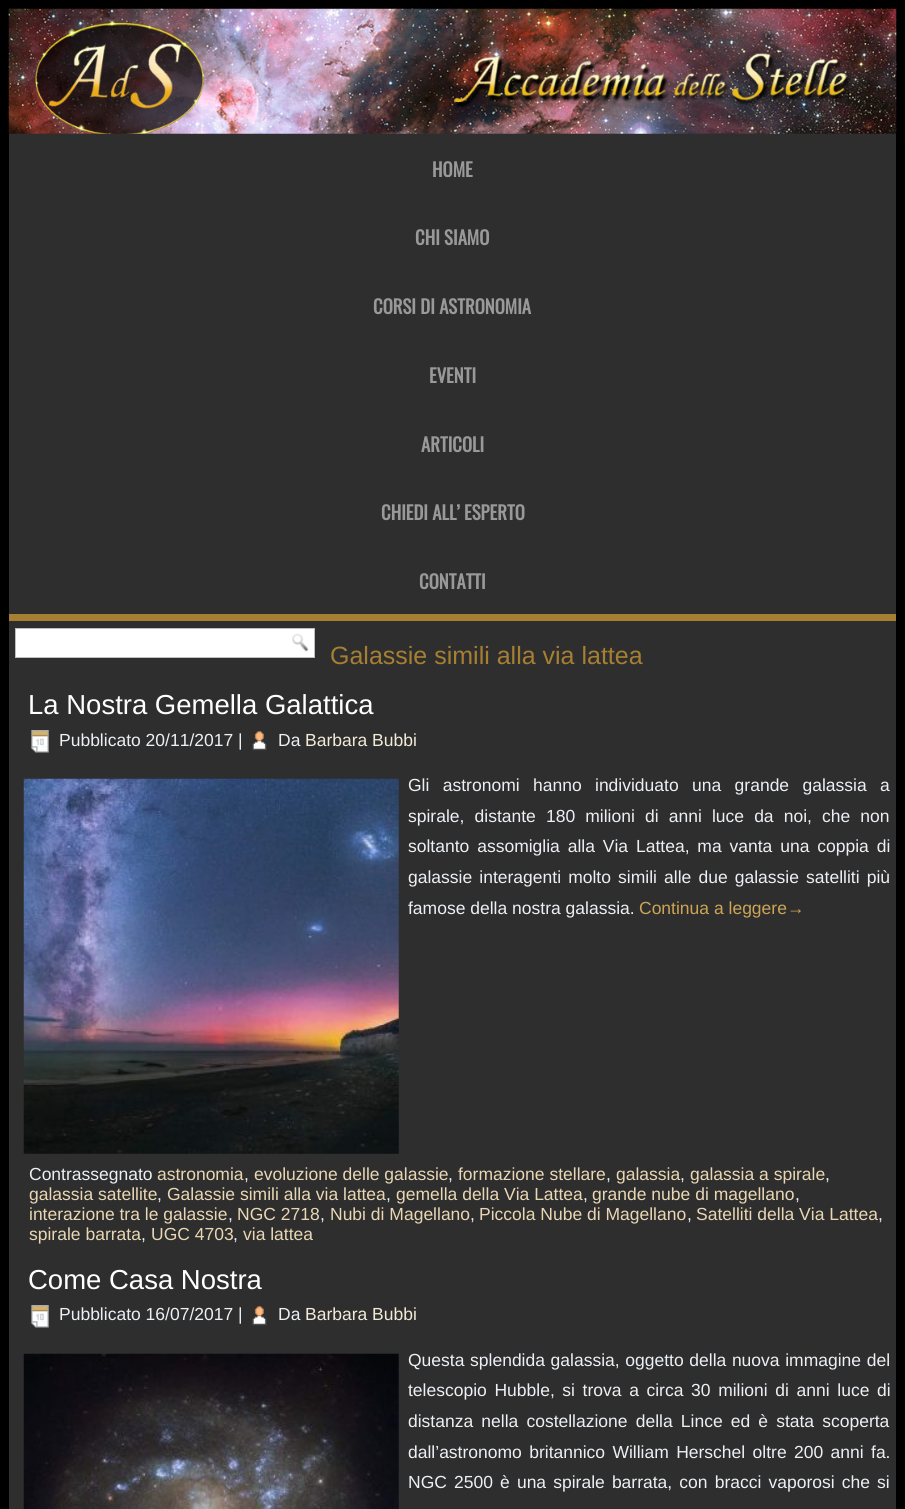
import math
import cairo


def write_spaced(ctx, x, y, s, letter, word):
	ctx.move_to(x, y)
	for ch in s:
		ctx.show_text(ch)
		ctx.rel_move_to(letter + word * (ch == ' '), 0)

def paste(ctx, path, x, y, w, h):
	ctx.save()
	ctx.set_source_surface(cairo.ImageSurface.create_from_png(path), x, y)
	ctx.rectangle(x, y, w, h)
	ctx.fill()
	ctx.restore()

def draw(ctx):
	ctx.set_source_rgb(0, 0, 0)
	ctx.paint()
	ctx.set_source_rgb(0.18, 0.18, 0.18)
	ctx.rectangle(9, 133, 887, 1376)
	ctx.fill()
	paste(ctx, 'media/1.png', 8, 8, 889, 126)
	ctx.set_source_rgb(0.651, 0.498, 0.196)
	ctx.rectangle(9, 614, 887, 7)
	ctx.fill()
	ctx.select_font_face('Oswald', cairo.FONT_SLANT_NORMAL, cairo.FONT_WEIGHT_BOLD)
	ctx.set_font_size(18.75)
	ctx.set_source_rgb(0.6, 0.6, 0.6)
	for x, y, s in [
		(432, 177, 'HOME'),
		(415, 245, 'CHI SIAMO'),
		(373, 314, 'CORSI DI ASTRONOMIA'),
		(429, 383, 'EVENTI'),
		(421, 452, 'ARTICOLI'),
		(381, 520, 'CHIEDI ALL’ ESPERTO'),
		(419, 589, 'CONTATTI'),
	]:
		ctx.move_to(x, y)
		ctx.show_text(s)
	ctx.set_source_rgb(1, 1, 1)
	ctx.rectangle(15.5, 628.5, 299, 29)
	ctx.fill_preserve()
	ctx.set_source_rgb(0.749, 0.749, 0.749)
	ctx.set_line_width(1)
	ctx.stroke()
	paste(ctx, 'media/2.png', 292, 633, 17, 19)
	ctx.select_font_face('Liberation Sans')
	ctx.set_font_size(25)
	ctx.set_source_rgb(0.651, 0.498, 0.196)
	ctx.move_to(330, 664)
	ctx.show_text('Galassie simili alla via lattea')
	ctx.set_font_size(27.5)
	ctx.set_source_rgb(1, 1, 1)
	ctx.move_to(28, 714)
	ctx.show_text('La Nostra Gemella Galattica')
	paste(ctx, 'media/3.png', 31, 730, 18, 23)
	ctx.set_font_size(17.5)
	ctx.set_source_rgb(0.925, 0.941, 0.957)
	ctx.move_to(59, 746)
	ctx.show_text('Pubblicato 20/11/2017 |')
	paste(ctx, 'media/4.png', 252, 731, 15, 20)
	ctx.move_to(278, 746)
	ctx.show_text('Da')
	ctx.set_source_rgb(0.953, 0.918, 0.847)
	ctx.move_to(305, 746)
	ctx.show_text('Barbara Bubbi')
	paste(ctx, 'media/5.png', 23, 778, 376, 376)
	ctx.set_source_rgb(0.925, 0.941, 0.957)
	write_spaced(ctx, 408, 791, 'Gli astronomi hanno individuato una grande galassia a', 0, 8.5)
	write_spaced(ctx, 408, 822, 'spirale, distante 180 milioni di anni luce da noi, che non', 0, 5.25)
	write_spaced(ctx, 408, 852, 'soltanto assomiglia alla Via Lattea, ma vanta una coppia di', 0, 3)
	write_spaced(ctx, 408, 883, 'galassie interagenti molto simili alle due galassie satelliti più', 0, 2.25)
	ctx.move_to(408, 914)
	ctx.show_text('famose della nostra galassia.')
	ctx.set_source_rgb(0.804, 0.647, 0.337)
	ctx.move_to(639, 914)
	ctx.show_text('Continua a leggere→')
	ctx.set_source_rgb(0.925, 0.941, 0.957)
	ctx.move_to(29, 1180)
	ctx.show_text('Contrassegnato')
	ctx.set_source_rgb(0.914, 0.843, 0.706)
	ctx.move_to(157, 1180)
	ctx.show_text('astronomia')
	ctx.set_source_rgb(0.925, 0.941, 0.957)
	ctx.move_to(244, 1180)
	ctx.show_text(',')
	ctx.set_source_rgb(0.914, 0.843, 0.706)
	ctx.move_to(254, 1180)
	ctx.show_text('evoluzione delle galassie')
	ctx.set_source_rgb(0.925, 0.941, 0.957)
	ctx.move_to(448, 1180)
	ctx.show_text(',')
	ctx.set_source_rgb(0.914, 0.843, 0.706)
	ctx.move_to(458, 1180)
	ctx.show_text('formazione stellare')
	ctx.set_source_rgb(0.925, 0.941, 0.957)
	ctx.move_to(606, 1180)
	ctx.show_text(',')
	ctx.set_source_rgb(0.914, 0.843, 0.706)
	ctx.move_to(616, 1180)
	ctx.show_text('galassia')
	ctx.set_source_rgb(0.925, 0.941, 0.957)
	ctx.move_to(680, 1180)
	ctx.show_text(',')
	ctx.set_source_rgb(0.914, 0.843, 0.706)
	ctx.move_to(690, 1180)
	ctx.show_text('galassia a spirale')
	ctx.set_source_rgb(0.925, 0.941, 0.957)
	ctx.move_to(825, 1180)
	ctx.show_text(',')
	ctx.set_source_rgb(0.914, 0.843, 0.706)
	ctx.move_to(29, 1200)
	ctx.show_text('galassia satellite')
	ctx.set_source_rgb(0.925, 0.941, 0.957)
	ctx.move_to(157, 1200)
	ctx.show_text(',')
	ctx.set_source_rgb(0.914, 0.843, 0.706)
	ctx.move_to(167, 1200)
	ctx.show_text('Galassie simili alla via lattea')
	ctx.set_source_rgb(0.925, 0.941, 0.957)
	ctx.move_to(386, 1200)
	ctx.show_text(',')
	ctx.set_source_rgb(0.914, 0.843, 0.706)
	ctx.move_to(396, 1200)
	ctx.show_text('gemella della Via Lattea')
	ctx.set_source_rgb(0.925, 0.941, 0.957)
	ctx.move_to(583, 1200)
	ctx.show_text(',')
	ctx.set_source_rgb(0.914, 0.843, 0.706)
	ctx.move_to(592, 1200)
	ctx.show_text('grande nube di magellano')
	ctx.set_source_rgb(0.925, 0.941, 0.957)
	ctx.move_to(795, 1200)
	ctx.show_text(',')
	ctx.set_source_rgb(0.914, 0.843, 0.706)
	ctx.move_to(29, 1220)
	ctx.show_text('interazione tra le galassie')
	ctx.set_source_rgb(0.925, 0.941, 0.957)
	ctx.move_to(228, 1220)
	ctx.show_text(',')
	ctx.set_source_rgb(0.914, 0.843, 0.706)
	ctx.move_to(237, 1220)
	ctx.show_text('NGC 2718')
	ctx.set_source_rgb(0.925, 0.941, 0.957)
	ctx.move_to(320, 1220)
	ctx.show_text(',')
	ctx.set_source_rgb(0.914, 0.843, 0.706)
	ctx.move_to(330, 1220)
	ctx.show_text('Nubi di Magellano')
	ctx.set_source_rgb(0.925, 0.941, 0.957)
	ctx.move_to(470, 1220)
	ctx.show_text(',')
	ctx.set_source_rgb(0.914, 0.843, 0.706)
	ctx.move_to(479, 1220)
	ctx.show_text('Piccola Nube di Magellano')
	ctx.set_source_rgb(0.925, 0.941, 0.957)
	ctx.move_to(687, 1220)
	ctx.show_text(',')
	ctx.set_source_rgb(0.914, 0.843, 0.706)
	ctx.move_to(696, 1220)
	ctx.show_text('Satelliti della Via Lattea')
	ctx.set_source_rgb(0.925, 0.941, 0.957)
	ctx.move_to(878, 1220)
	ctx.show_text(',')
	ctx.set_source_rgb(0.914, 0.843, 0.706)
	ctx.move_to(29, 1240)
	ctx.show_text('spirale barrata')
	ctx.set_source_rgb(0.925, 0.941, 0.957)
	ctx.move_to(141, 1240)
	ctx.show_text(',')
	ctx.set_source_rgb(0.914, 0.843, 0.706)
	ctx.move_to(151, 1240)
	ctx.show_text('UGC 4703')
	ctx.set_source_rgb(0.925, 0.941, 0.957)
	ctx.move_to(233, 1240)
	ctx.show_text(',')
	ctx.set_source_rgb(0.914, 0.843, 0.706)
	ctx.move_to(243, 1240)
	ctx.show_text('via lattea')
	ctx.set_font_size(27.5)
	ctx.set_source_rgb(1, 1, 1)
	ctx.move_to(28, 1289)
	ctx.show_text('Come Casa Nostra')
	paste(ctx, 'media/3.png', 31, 1305, 18, 23)
	ctx.set_font_size(17.5)
	ctx.set_source_rgb(0.925, 0.941, 0.957)
	ctx.move_to(59, 1320)
	ctx.show_text('Pubblicato 16/07/2017 |')
	paste(ctx, 'media/4.png', 252, 1306, 15, 20)
	ctx.move_to(278, 1320)
	ctx.show_text('Da')
	ctx.set_source_rgb(0.953, 0.918, 0.847)
	ctx.move_to(305, 1320)
	ctx.show_text('Barbara Bubbi')
	paste(ctx, 'media/6.png', 23, 1353, 376, 156)
	ctx.set_source_rgb(0.925, 0.941, 0.957)
	write_spaced(ctx, 408, 1366, 'Questa splendida galassia, oggetto della nuova immagine del', 0, 0.75)
	write_spaced(ctx, 408, 1396, 'telescopio Hubble, si trova a circa 30 milioni di anni luce di', 0, 2.75)
	write_spaced(ctx, 408, 1427, 'distanza nella costellazione della Lince ed è stata scoperta', 0, 3.25)
	write_spaced(ctx, 408, 1458, 'dall’astronomo britannico William Herschel oltre 200 anni fa.', 0, 2.5)
	write_spaced(ctx, 408, 1488, 'NGC 2500 è una spirale barrata, con bracci vaporosi che si', 0, 2.25)


surface = cairo.ImageSurface(cairo.FORMAT_RGB24, 905, 1509)
ctx = cairo.Context(surface)
options = cairo.FontOptions()
options.set_hint_metrics(cairo.HINT_METRICS_OFF)
options.set_hint_style(cairo.HINT_STYLE_NONE)
ctx.set_font_options(options)
ctx.set_miter_limit(4)
draw(ctx)
surface.write_to_png('image.png')
